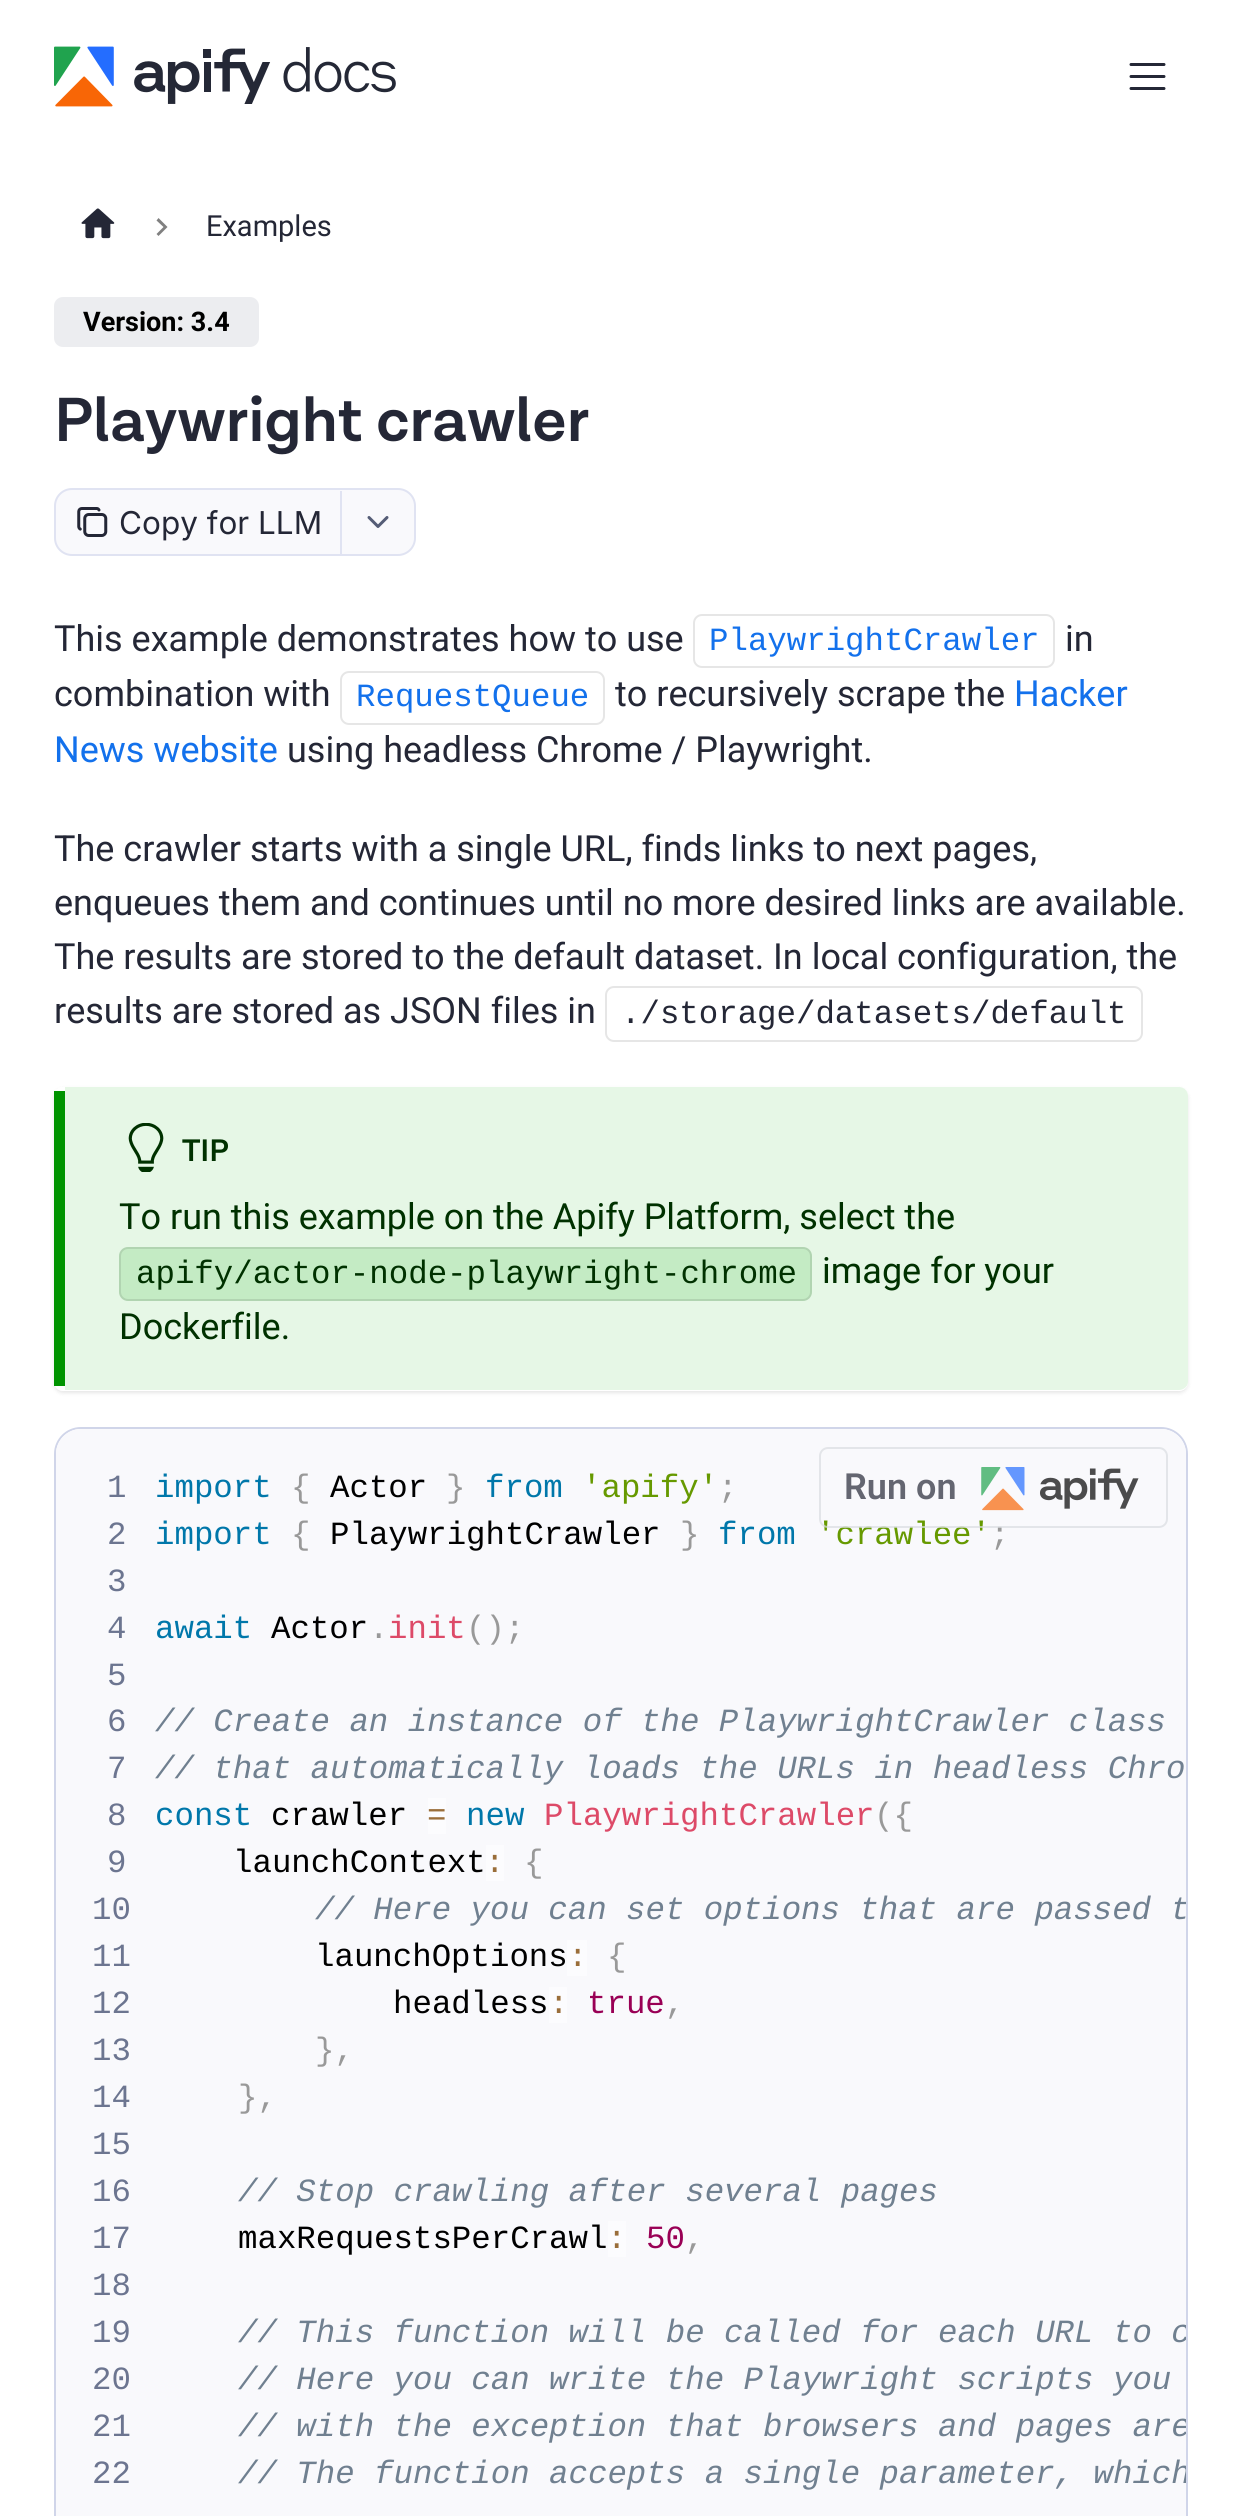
import math
import cairo


def round_path(ctx, x, y, w, h, r):
	ctx.new_sub_path()
	for i, (u, v) in enumerate([(x + w - r, y + h - r), (x + r, y + h - r), (x + r, y + r), (x + w - r, y + r)]):
		ctx.arc(u, v, r, i * math.pi / 2, (i + 1) * math.pi / 2)
	ctx.close_path()

def blur_box(ctx, x, y, w, h, r, blur, alpha):
	ctx.push_group_with_content(cairo.CONTENT_ALPHA)
	ctx.set_operator(cairo.OPERATOR_SOURCE)
	for i in range(15, -16, -2):
		e = blur * i / 6
		if min(w, h) + 2 * e > 0:
			ctx.set_source_rgba(0, 0, 0, alpha * math.erfc((i - 1) / 8.5) / 2)
			round_path(ctx, x - e, y - e, w + 2 * e, h + 2 * e, max(0, min(r + e + blur * .6, min(w, h) / 2 + e)))
			ctx.fill()
	ctx.mask(ctx.pop_group())

def paste(ctx, path, x, y, w, h):
	ctx.save()
	ctx.set_source_surface(cairo.ImageSurface.create_from_png(path), x, y)
	ctx.rectangle(x, y, w, h)
	ctx.fill()
	ctx.restore()

def draw(ctx):
	ctx.set_source_rgb(1, 1, 1)
	ctx.paint()
	paste(ctx, 'media/1.png', 54, 46, 342, 61)
	ctx.new_path()
	ctx.move_to(1131, 64.5)
	ctx.line_to(1164, 64.5)
	ctx.move_to(1131, 76.5)
	ctx.line_to(1164, 76.5)
	ctx.move_to(1131, 88.5)
	ctx.line_to(1164, 88.5)
	ctx.set_source_rgb(0.141, 0.153, 0.212)
	ctx.set_line_width(3)
	ctx.set_line_cap(cairo.LINE_CAP_ROUND)
	ctx.stroke()
	paste(ctx, 'media/2.png', 81, 208, 34, 31)
	ctx.set_source_rgb(0.502, 0.502, 0.502)
	ctx.new_path()
	ctx.move_to(158.5, 218)
	ctx.line_to(156.5, 220.5)
	ctx.line_to(163.5, 227)
	ctx.line_to(156.5, 234)
	ctx.line_to(158.5, 236)
	ctx.line_to(167.5, 227)
	ctx.close_path()
	ctx.fill()
	ctx.select_font_face('Roboto')
	ctx.set_font_size(29)
	ctx.set_source_rgb(0.141, 0.153, 0.212)
	ctx.move_to(206, 236)
	ctx.show_text('Examples')
	ctx.set_source_rgb(0.922, 0.929, 0.941)
	round_path(ctx, 55, 298, 203, 48, 8)
	ctx.fill_preserve()
	ctx.set_line_width(2)
	ctx.set_line_cap(cairo.LINE_CAP_BUTT)
	ctx.stroke()
	ctx.select_font_face('Roboto', cairo.FONT_SLANT_NORMAL, cairo.FONT_WEIGHT_BOLD)
	ctx.set_font_size(27)
	ctx.set_source_rgb(0, 0, 0)
	ctx.move_to(83, 331)
	ctx.show_text('Version: 3.4')
	ctx.select_font_face('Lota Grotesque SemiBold')
	ctx.set_font_size(63)
	ctx.set_source_rgb(0.141, 0.153, 0.212)
	ctx.move_to(54, 441)
	ctx.show_text('Playwright crawler')
	ctx.set_source_rgb(0.973, 0.976, 0.988)
	round_path(ctx, 55, 489, 360, 66, 17)
	ctx.fill_preserve()
	ctx.set_source_rgb(0.878, 0.89, 0.949)
	ctx.stroke()
	paste(ctx, 'media/3.png', 77, 507, 31, 30)
	ctx.select_font_face('Inter')
	ctx.set_font_size(31.5)
	ctx.set_source_rgb(0.141, 0.153, 0.212)
	ctx.move_to(119, 534)
	ctx.show_text('Copy for LLM')
	ctx.set_source_rgb(0.878, 0.89, 0.949)
	ctx.rectangle(340, 491, 2, 63)
	ctx.fill()
	ctx.new_path()
	ctx.move_to(369, 517.5)
	ctx.line_to(378, 526.5)
	ctx.line_to(387, 517.5)
	ctx.set_source_rgb(0.333, 0.365, 0.463)
	ctx.set_line_width(3)
	ctx.set_line_cap(cairo.LINE_CAP_ROUND)
	ctx.set_line_join(cairo.LINE_JOIN_ROUND)
	ctx.stroke()
	ctx.select_font_face('Roboto')
	ctx.set_font_size(36)
	ctx.set_source_rgb(0.141, 0.153, 0.212)
	ctx.move_to(54, 651)
	ctx.show_text('This example demonstrates how to use')
	round_path(ctx, 694, 615, 360, 52, 8)
	ctx.set_source_rgb(0.902, 0.902, 0.902)
	ctx.set_line_width(2)
	ctx.set_line_cap(cairo.LINE_CAP_BUTT)
	ctx.set_line_join(cairo.LINE_JOIN_MITER)
	ctx.stroke()
	ctx.select_font_face('Liberation Mono')
	ctx.set_font_size(32.4)
	ctx.set_source_rgb(0.078, 0.443, 0.922)
	ctx.move_to(709, 650)
	ctx.show_text('PlaywrightCrawler')
	ctx.select_font_face('Roboto')
	ctx.set_font_size(36)
	ctx.set_source_rgb(0.141, 0.153, 0.212)
	ctx.move_to(1065, 651)
	ctx.show_text('in')
	ctx.move_to(54, 706)
	ctx.show_text('combination with')
	round_path(ctx, 341, 672, 263, 52, 8)
	ctx.set_source_rgb(0.902, 0.902, 0.902)
	ctx.stroke()
	ctx.select_font_face('Liberation Mono')
	ctx.set_font_size(32.4)
	ctx.set_source_rgb(0.078, 0.443, 0.922)
	ctx.move_to(356, 706)
	ctx.show_text('RequestQueue')
	ctx.select_font_face('Roboto')
	ctx.set_font_size(36)
	ctx.set_source_rgb(0.141, 0.153, 0.212)
	ctx.move_to(615, 706)
	ctx.show_text('to recursively scrape the')
	ctx.set_source_rgb(0.078, 0.443, 0.922)
	ctx.move_to(1014, 706)
	ctx.show_text('Hacker')
	ctx.move_to(54, 762)
	ctx.show_text('News website')
	ctx.set_source_rgb(0.141, 0.153, 0.212)
	for x, y, s in [
		(287, 762, 'using headless Chrome / Playwright.'),
		(54, 861, 'The crawler starts with a single URL, finds links to next pages,'),
		(54, 915, 'enqueues them and continues until no more desired links are available.'),
		(54, 969, 'The results are stored to the default dataset. In local configuration, the'),
		(54, 1023, 'results are stored as JSON files in'),
	]:
		ctx.move_to(x, y)
		ctx.show_text(s)
	round_path(ctx, 606, 987, 536, 54, 8)
	ctx.set_source_rgb(0.902, 0.902, 0.902)
	ctx.stroke()
	ctx.select_font_face('Liberation Mono')
	ctx.set_font_size(32.4)
	ctx.set_source_rgb(0.141, 0.153, 0.212)
	ctx.move_to(621, 1023)
	ctx.show_text('./storage/datasets/default')
	ctx.save()
	ctx.set_fill_rule(cairo.FILL_RULE_EVEN_ODD)
	ctx.new_path()
	ctx.move_to(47, 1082)
	ctx.line_to(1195, 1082)
	ctx.line_to(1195, 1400)
	ctx.line_to(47, 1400)
	ctx.close_path()
	ctx.move_to(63, 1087)
	ctx.line_to(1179, 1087)
	ctx.curve_to(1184, 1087, 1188, 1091, 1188, 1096)
	ctx.line_to(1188, 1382)
	ctx.curve_to(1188, 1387, 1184, 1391, 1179, 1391)
	ctx.line_to(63, 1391)
	ctx.curve_to(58, 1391, 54, 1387, 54, 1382)
	ctx.line_to(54, 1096)
	ctx.curve_to(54, 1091, 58, 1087, 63, 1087)
	ctx.close_path()
	ctx.clip()
	ctx.set_source_rgb(0, 0, 0)
	blur_box(ctx, 54, 1089, 1134, 304, 9, 2, 0.1)
	ctx.restore()
	ctx.set_source_rgb(0.902, 0.965, 0.902)
	ctx.new_path()
	ctx.move_to(65, 1087)
	ctx.line_to(1179, 1087)
	ctx.curve_to(1184, 1087, 1188, 1091, 1188, 1096)
	ctx.line_to(1188, 1382)
	ctx.curve_to(1188, 1386, 1184, 1390, 1179, 1390)
	ctx.line_to(65, 1390)
	ctx.close_path()
	ctx.fill()
	ctx.set_source_rgb(0, 0.58, 0)
	ctx.rectangle(54, 1091, 11, 295)
	ctx.fill()
	paste(ctx, 'media/4.png', 128, 1123, 36, 49)
	ctx.select_font_face('Lota Grotesque SemiBold')
	ctx.set_font_size(31.5)
	ctx.set_source_rgb(0, 0.192, 0)
	ctx.move_to(182, 1161)
	ctx.show_text('TIP')
	ctx.select_font_face('Roboto')
	ctx.set_font_size(36)
	ctx.move_to(119, 1229)
	ctx.show_text('To run this example on the Apify Platform, select the')
	ctx.set_source_rgb(0.769, 0.918, 0.769)
	round_path(ctx, 119, 1247, 693, 54, 9)
	ctx.fill()
	round_path(ctx, 120, 1248, 691, 52, 8)
	ctx.set_source_rgba(0, 0, 0, 0.1)
	ctx.stroke()
	ctx.select_font_face('Liberation Mono')
	ctx.set_font_size(32.4)
	ctx.set_source_rgb(0, 0.192, 0)
	ctx.move_to(136, 1283)
	ctx.show_text('apify/actor-node-playwright-chrome')
	ctx.select_font_face('Roboto')
	ctx.set_font_size(36)
	ctx.move_to(822, 1283)
	ctx.show_text('image for your')
	ctx.move_to(119, 1339)
	ctx.show_text('Dockerfile.')
	round_path(ctx, 55, 1428, 1132, 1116, 26)
	ctx.set_source_rgb(0.816, 0.835, 0.914)
	ctx.stroke()
	ctx.set_source_rgb(0.973, 0.976, 0.988)
	round_path(ctx, 56, 1429, 1130, 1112, 25)
	ctx.fill()
	ctx.select_font_face('Liberation Mono')
	ctx.set_font_size(32.4)
	ctx.set_source_rgb(0.424, 0.459, 0.565)
	ctx.move_to(107, 1497)
	ctx.show_text('1')
	ctx.set_source_rgb(0, 0.467, 0.667)
	ctx.move_to(155, 1497)
	ctx.show_text('import')
	ctx.set_source_rgb(0.6, 0.6, 0.6)
	ctx.move_to(291, 1497)
	ctx.show_text('{')
	ctx.set_source_rgb(0, 0, 0)
	ctx.move_to(330, 1497)
	ctx.show_text('Actor')
	ctx.set_source_rgb(0.6, 0.6, 0.6)
	ctx.move_to(446, 1497)
	ctx.show_text('}')
	ctx.set_source_rgb(0, 0.467, 0.667)
	ctx.move_to(485, 1497)
	ctx.show_text('from')
	ctx.set_source_rgb(0.4, 0.6, 0)
	ctx.move_to(582, 1497)
	ctx.show_text('\'apify\'')
	ctx.set_source_rgb(0.6, 0.6, 0.6)
	ctx.move_to(718, 1497)
	ctx.show_text(';')
	ctx.set_source_rgb(0.424, 0.459, 0.565)
	ctx.move_to(107, 1544)
	ctx.show_text('2')
	ctx.set_source_rgb(0, 0.467, 0.667)
	ctx.move_to(155, 1544)
	ctx.show_text('import')
	ctx.set_source_rgb(0.6, 0.6, 0.6)
	ctx.move_to(291, 1544)
	ctx.show_text('{')
	ctx.set_source_rgb(0, 0, 0)
	ctx.move_to(330, 1544)
	ctx.show_text('PlaywrightCrawler')
	ctx.set_source_rgb(0.6, 0.6, 0.6)
	ctx.move_to(680, 1544)
	ctx.show_text('}')
	ctx.set_source_rgb(0, 0.467, 0.667)
	ctx.move_to(718, 1544)
	ctx.show_text('from')
	ctx.set_source_rgb(0.4, 0.6, 0)
	ctx.move_to(816, 1544)
	ctx.show_text('\'crawlee\'')
	ctx.set_source_rgb(0.6, 0.6, 0.6)
	ctx.move_to(990, 1544)
	ctx.show_text(';')
	ctx.set_source_rgb(0.424, 0.459, 0.565)
	ctx.move_to(107, 1591)
	ctx.show_text('3')
	ctx.move_to(107, 1638)
	ctx.show_text('4')
	ctx.set_source_rgb(0, 0.467, 0.667)
	ctx.move_to(155, 1638)
	ctx.show_text('await')
	ctx.set_source_rgb(0, 0, 0)
	ctx.move_to(271, 1638)
	ctx.show_text('Actor')
	ctx.set_source_rgb(0.6, 0.6, 0.6)
	ctx.move_to(369, 1638)
	ctx.show_text('.')
	ctx.set_source_rgb(0.867, 0.29, 0.408)
	ctx.move_to(388, 1638)
	ctx.show_text('init')
	ctx.set_source_rgb(0.6, 0.6, 0.6)
	ctx.move_to(466, 1638)
	ctx.show_text('();')
	ctx.set_source_rgb(0.424, 0.459, 0.565)
	ctx.move_to(107, 1685)
	ctx.show_text('5')
	ctx.move_to(107, 1731)
	ctx.show_text('6')
	ctx.select_font_face('Liberation Mono', cairo.FONT_SLANT_ITALIC)
	ctx.set_source_rgb(0.439, 0.502, 0.565)
	ctx.move_to(155, 1731)
	ctx.show_text('// Create an instance of the PlaywrightCrawler class')
	ctx.select_font_face('Liberation Mono')
	ctx.set_source_rgb(0.424, 0.459, 0.565)
	ctx.move_to(107, 1778)
	ctx.show_text('7')
	ctx.select_font_face('Liberation Mono', cairo.FONT_SLANT_ITALIC)
	ctx.set_source_rgb(0.439, 0.502, 0.565)
	ctx.move_to(155, 1778)
	ctx.show_text('// that automatically loads the URLs in headless Chro')
	ctx.select_font_face('Liberation Mono')
	ctx.set_source_rgb(0.424, 0.459, 0.565)
	ctx.move_to(107, 1825)
	ctx.show_text('8')
	ctx.set_source_rgb(0, 0.467, 0.667)
	ctx.move_to(155, 1825)
	ctx.show_text('const')
	ctx.set_source_rgb(0, 0, 0)
	ctx.move_to(271, 1825)
	ctx.show_text('crawler')
	ctx.set_source_rgb(0.988, 0.988, 0.996)
	ctx.rectangle(428, 1798, 18, 36)
	ctx.fill()
	ctx.set_source_rgb(0.604, 0.431, 0.227)
	ctx.move_to(427, 1825)
	ctx.show_text('=')
	ctx.set_source_rgb(0, 0.467, 0.667)
	ctx.move_to(466, 1825)
	ctx.show_text('new')
	ctx.set_source_rgb(0.867, 0.29, 0.408)
	ctx.move_to(544, 1825)
	ctx.show_text('PlaywrightCrawler')
	ctx.set_source_rgb(0.6, 0.6, 0.6)
	ctx.move_to(874, 1825)
	ctx.show_text('({')
	ctx.set_source_rgb(0.424, 0.459, 0.565)
	ctx.move_to(107, 1872)
	ctx.show_text('9')
	ctx.set_source_rgb(0, 0, 0)
	ctx.move_to(233, 1872)
	ctx.show_text('launchContext')
	ctx.set_source_rgb(0.988, 0.988, 0.996)
	ctx.rectangle(486, 1845, 18, 36)
	ctx.fill()
	ctx.set_source_rgb(0.604, 0.431, 0.227)
	ctx.move_to(485, 1872)
	ctx.show_text(':')
	ctx.set_source_rgb(0.6, 0.6, 0.6)
	ctx.move_to(524, 1872)
	ctx.show_text('{')
	ctx.set_source_rgb(0.424, 0.459, 0.565)
	ctx.move_to(92, 1919)
	ctx.show_text('10')
	ctx.save()
	round_path(ctx, 56, 1429, 1130, 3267, 9)
	ctx.clip()
	ctx.select_font_face('Liberation Mono', cairo.FONT_SLANT_ITALIC)
	ctx.set_source_rgb(0.439, 0.502, 0.565)
	ctx.move_to(315, 1919)
	ctx.show_text('// Here you can set options that are passed t')
	ctx.restore()
	ctx.move_to(92, 1966)
	ctx.show_text('11')
	ctx.set_source_rgb(0, 0, 0)
	ctx.move_to(315, 1966)
	ctx.show_text('launchOptions')
	ctx.set_source_rgb(0.988, 0.988, 0.996)
	ctx.rectangle(567, 1940, 20, 36)
	ctx.fill()
	ctx.set_source_rgb(0.604, 0.431, 0.227)
	ctx.move_to(568, 1966)
	ctx.show_text(':')
	ctx.set_source_rgb(0.6, 0.6, 0.6)
	ctx.move_to(607, 1966)
	ctx.show_text('{')
	ctx.set_source_rgb(0.424, 0.459, 0.565)
	ctx.move_to(92, 2013)
	ctx.show_text('12')
	ctx.set_source_rgb(0, 0, 0)
	ctx.move_to(393, 2013)
	ctx.show_text('headless')
	ctx.set_source_rgb(0.988, 0.988, 0.996)
	ctx.rectangle(549, 1987, 18, 36)
	ctx.fill()
	ctx.set_source_rgb(0.604, 0.431, 0.227)
	ctx.move_to(549, 2013)
	ctx.show_text(':')
	ctx.set_source_rgb(0.6, 0, 0.333)
	ctx.move_to(587, 2013)
	ctx.show_text('true')
	ctx.set_source_rgb(0.6, 0.6, 0.6)
	ctx.move_to(665, 2013)
	ctx.show_text(',')
	ctx.set_source_rgb(0.424, 0.459, 0.565)
	ctx.move_to(92, 2060)
	ctx.show_text('13')
	ctx.set_source_rgb(0.6, 0.6, 0.6)
	ctx.move_to(315, 2060)
	ctx.show_text('},')
	ctx.set_source_rgb(0.424, 0.459, 0.565)
	ctx.move_to(92, 2107)
	ctx.show_text('14')
	ctx.set_source_rgb(0.6, 0.6, 0.6)
	ctx.move_to(238, 2107)
	ctx.show_text('},')
	ctx.set_source_rgb(0.424, 0.459, 0.565)
	ctx.move_to(92, 2154)
	ctx.show_text('15')
	ctx.move_to(92, 2201)
	ctx.show_text('16')
	ctx.select_font_face('Liberation Mono', cairo.FONT_SLANT_ITALIC)
	ctx.set_source_rgb(0.439, 0.502, 0.565)
	ctx.move_to(238, 2201)
	ctx.show_text('// Stop crawling after several pages')
	ctx.select_font_face('Liberation Mono')
	ctx.set_source_rgb(0.424, 0.459, 0.565)
	ctx.move_to(92, 2248)
	ctx.show_text('17')
	ctx.set_source_rgb(0, 0, 0)
	ctx.move_to(238, 2248)
	ctx.show_text('maxRequestsPerCrawl')
	ctx.set_source_rgb(0.988, 0.988, 0.996)
	ctx.rectangle(608, 2221, 18, 36)
	ctx.fill()
	ctx.set_source_rgb(0.604, 0.431, 0.227)
	ctx.move_to(607, 2248)
	ctx.show_text(':')
	ctx.set_source_rgb(0.6, 0, 0.333)
	ctx.move_to(646, 2248)
	ctx.show_text('50')
	ctx.set_source_rgb(0.6, 0.6, 0.6)
	ctx.move_to(685, 2248)
	ctx.show_text(',')
	ctx.set_source_rgb(0.424, 0.459, 0.565)
	ctx.move_to(92, 2295)
	ctx.show_text('18')
	ctx.move_to(92, 2342)
	ctx.show_text('19')
	ctx.save()
	round_path(ctx, 56, 1429, 1130, 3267, 9)
	ctx.clip()
	ctx.select_font_face('Liberation Mono', cairo.FONT_SLANT_ITALIC)
	ctx.set_source_rgb(0.439, 0.502, 0.565)
	ctx.move_to(238, 2342)
	ctx.show_text('// This function will be called for each URL to c')
	ctx.restore()
	ctx.move_to(92, 2389)
	ctx.show_text('20')
	ctx.select_font_face('Liberation Mono', cairo.FONT_SLANT_ITALIC)
	ctx.set_source_rgb(0.439, 0.502, 0.565)
	ctx.move_to(238, 2389)
	ctx.show_text('// Here you can write the Playwright scripts you')
	ctx.select_font_face('Liberation Mono')
	ctx.set_source_rgb(0.424, 0.459, 0.565)
	ctx.move_to(92, 2436)
	ctx.show_text('21')
	ctx.save()
	round_path(ctx, 56, 1429, 1130, 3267, 9)
	ctx.clip()
	ctx.select_font_face('Liberation Mono', cairo.FONT_SLANT_ITALIC)
	ctx.set_source_rgb(0.439, 0.502, 0.565)
	ctx.move_to(238, 2436)
	ctx.show_text('// with the exception that browsers and pages are')
	ctx.restore()
	ctx.move_to(92, 2483)
	ctx.show_text('22')
	ctx.save()
	round_path(ctx, 56, 1429, 1130, 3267, 9)
	ctx.clip()
	ctx.select_font_face('Liberation Mono', cairo.FONT_SLANT_ITALIC)
	ctx.set_source_rgb(0.439, 0.502, 0.565)
	ctx.move_to(238, 2483)
	ctx.show_text('// The function accepts a single parameter, which')
	ctx.restore()
	round_path(ctx, 820, 1448, 347, 79, 8)
	ctx.set_source_rgba(0.855, 0.867, 0.882, 0.7)
	ctx.stroke()
	ctx.select_font_face('Roboto SemiBold')
	ctx.set_font_size(36)
	ctx.set_source_rgb(0.392, 0.4, 0.443)
	ctx.move_to(844, 1499)
	ctx.show_text('Run on')
	paste(ctx, 'media/5.png', 981, 1467, 158, 44)


surface = cairo.ImageSurface(cairo.FORMAT_RGB24, 1242, 2516)
ctx = cairo.Context(surface)
options = cairo.FontOptions()
options.set_hint_metrics(cairo.HINT_METRICS_OFF)
options.set_hint_style(cairo.HINT_STYLE_NONE)
ctx.set_font_options(options)
ctx.set_miter_limit(4)
draw(ctx)
surface.write_to_png('image.png')
